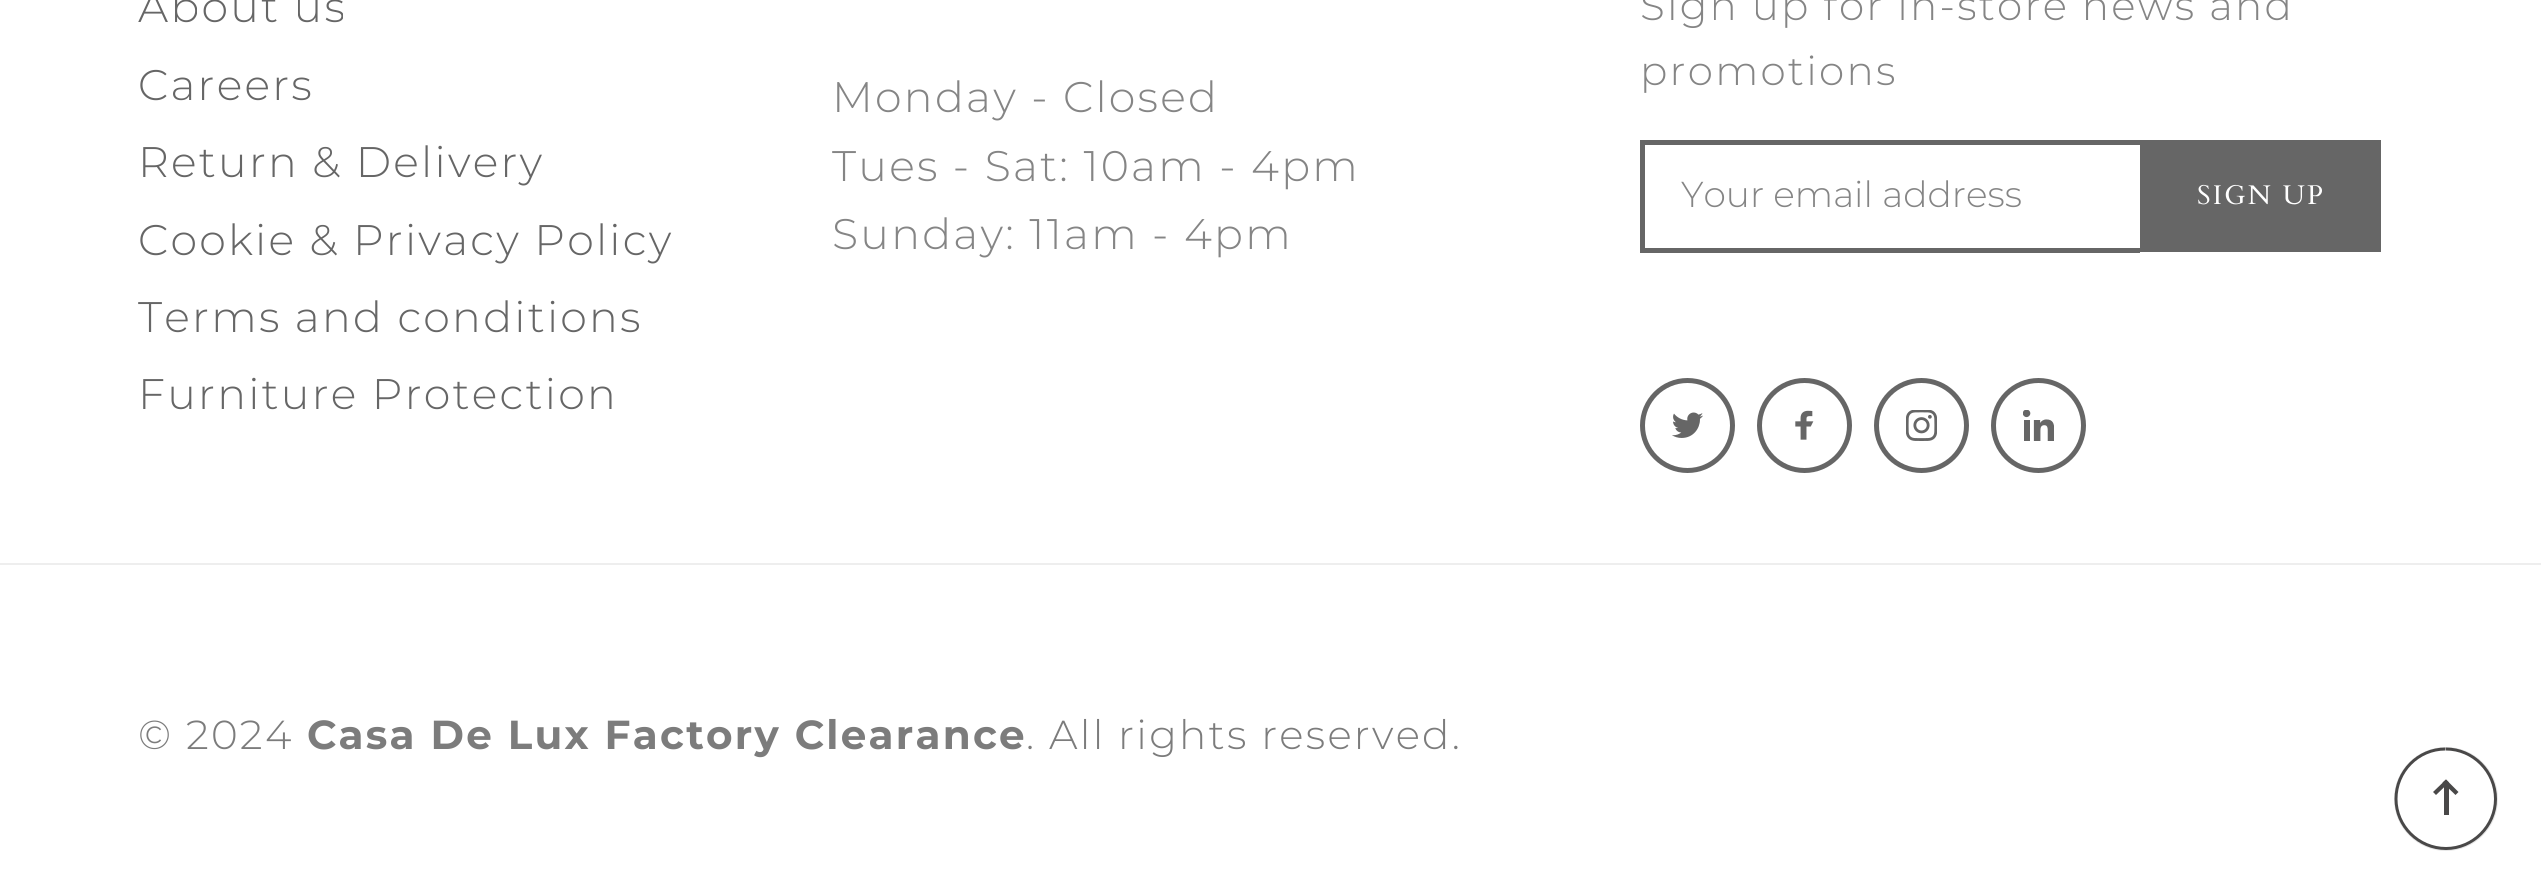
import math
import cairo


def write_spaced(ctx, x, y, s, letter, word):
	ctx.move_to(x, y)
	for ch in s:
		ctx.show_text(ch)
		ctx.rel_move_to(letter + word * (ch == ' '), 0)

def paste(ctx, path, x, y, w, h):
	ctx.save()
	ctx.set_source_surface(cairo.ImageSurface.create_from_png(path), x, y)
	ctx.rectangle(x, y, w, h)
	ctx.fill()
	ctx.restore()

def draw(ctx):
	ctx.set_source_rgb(1, 1, 1)
	ctx.paint()
	ctx.select_font_face('Montserrat Light')
	ctx.set_font_size(42.75)
	ctx.set_source_rgb(0.4, 0.4, 0.4)
	for x, y, s in [
		(138, 22, 'About us'),
		(138, 100, 'Careers'),
		(138, 177, 'Return & Delivery'),
		(138, 255, 'Cookie & Privacy Policy'),
		(138, 332, 'Terms and conditions'),
		(138, 409, 'Furniture Protection'),
	]:
		write_spaced(ctx, x, y, s, 2.25, 0)
	ctx.set_source_rgb(0.522, 0.522, 0.522)
	for x, y, s in [
		(832, 112, 'Monday - Closed'),
		(832, 181, 'Tues - Sat: 10am - 4pm'),
		(832, 249, 'Sunday: 11am - 4pm'),
	]:
		write_spaced(ctx, x, y, s, 2.25, 0)
	ctx.set_font_size(40.5)
	write_spaced(ctx, 1640, 20, 'Sign up for in-store news and', 2.25, 0)
	write_spaced(ctx, 1640, 85, 'promotions', 2.25, 0)
	ctx.set_source_rgb(0.4, 0.4, 0.4)
	ctx.rectangle(1640, 140, 500, 5)
	ctx.rectangle(1640, 248, 500, 5)
	ctx.rectangle(1640, 140, 5, 112)
	ctx.fill()
	ctx.set_font_size(36)
	ctx.set_source_rgb(0.522, 0.522, 0.522)
	ctx.move_to(1681, 207)
	ctx.show_text('Your email address')
	ctx.set_source_rgb(0.4, 0.4, 0.4)
	ctx.rectangle(2140, 140, 241, 112)
	ctx.fill()
	ctx.select_font_face('Cardo')
	ctx.set_font_size(27)
	ctx.set_source_rgb(1, 1, 1)
	write_spaced(ctx, 2197, 204, 'SIGN UP', 2.25, 0)
	ctx.new_path()
	ctx.arc(1687.5, 425.5, 45, 0, 2 * math.pi)
	ctx.set_source_rgb(0.4, 0.4, 0.4)
	ctx.set_line_width(5)
	ctx.stroke()
	paste(ctx, 'media/1.png', 1672, 412, 31, 26)
	ctx.arc(1804.5, 425.5, 45, 0, 2 * math.pi)
	ctx.stroke()
	paste(ctx, 'media/2.png', 1795, 410, 19, 30)
	ctx.arc(1921.5, 425.5, 45, 0, 2 * math.pi)
	ctx.stroke()
	paste(ctx, 'media/3.png', 1906, 410, 31, 31)
	ctx.arc(2038.5, 425.5, 45, 0, 2 * math.pi)
	ctx.stroke()
	paste(ctx, 'media/4.png', 2023, 410, 31, 31)
	ctx.set_source_rgb(0.933, 0.933, 0.933)
	ctx.rectangle(0, 563, 2541, 2)
	ctx.fill()
	ctx.select_font_face('Montserrat Light')
	ctx.set_font_size(40.5)
	ctx.set_source_rgb(0.486, 0.486, 0.486)
	write_spaced(ctx, 138, 749, '© 2024', 2.25, 0)
	ctx.select_font_face('Montserrat', cairo.FONT_SLANT_NORMAL, cairo.FONT_WEIGHT_BOLD)
	write_spaced(ctx, 307, 749, 'Casa De Lux Factory Clearance', 2.25, 0)
	ctx.select_font_face('Montserrat Light')
	write_spaced(ctx, 1026, 749, '. All rights reserved.', 2.25, 0)
	ctx.new_path()
	ctx.arc(2446, 799, 51, 0, 2 * math.pi)
	ctx.set_source_rgb(0.906, 0.906, 0.906)
	ctx.set_line_width(2)
	ctx.stroke()
	ctx.new_path()
	ctx.move_to(2446, 749)
	ctx.curve_to(2473, 749, 2495.5, 771.5, 2495.5, 799)
	ctx.curve_to(2495.5, 826, 2473, 848.5, 2446, 848.5)
	ctx.curve_to(2418.5, 848.5, 2396, 826, 2396, 799)
	ctx.curve_to(2396, 771.5, 2418, 749, 2445.5, 749)
	ctx.set_source_rgb(0.286, 0.282, 0.282)
	ctx.set_line_width(3)
	ctx.stroke()
	ctx.new_path()
	ctx.move_to(2449, 782.5)
	ctx.line_to(2436, 795)
	ctx.line_to(2433, 792)
	ctx.line_to(2446, 779.5)
	ctx.close_path()
	ctx.fill()
	ctx.new_path()
	ctx.move_to(2458.5, 792)
	ctx.line_to(2455.5, 795)
	ctx.line_to(2442.5, 782.5)
	ctx.line_to(2446, 779.5)
	ctx.close_path()
	ctx.fill()
	ctx.rectangle(2444, 783, 5, 32)
	ctx.fill()


surface = cairo.ImageSurface(cairo.FORMAT_RGB24, 2541, 894)
ctx = cairo.Context(surface)
options = cairo.FontOptions()
options.set_hint_metrics(cairo.HINT_METRICS_OFF)
options.set_hint_style(cairo.HINT_STYLE_NONE)
ctx.set_font_options(options)
ctx.set_miter_limit(4)
draw(ctx)
surface.write_to_png('image.png')
